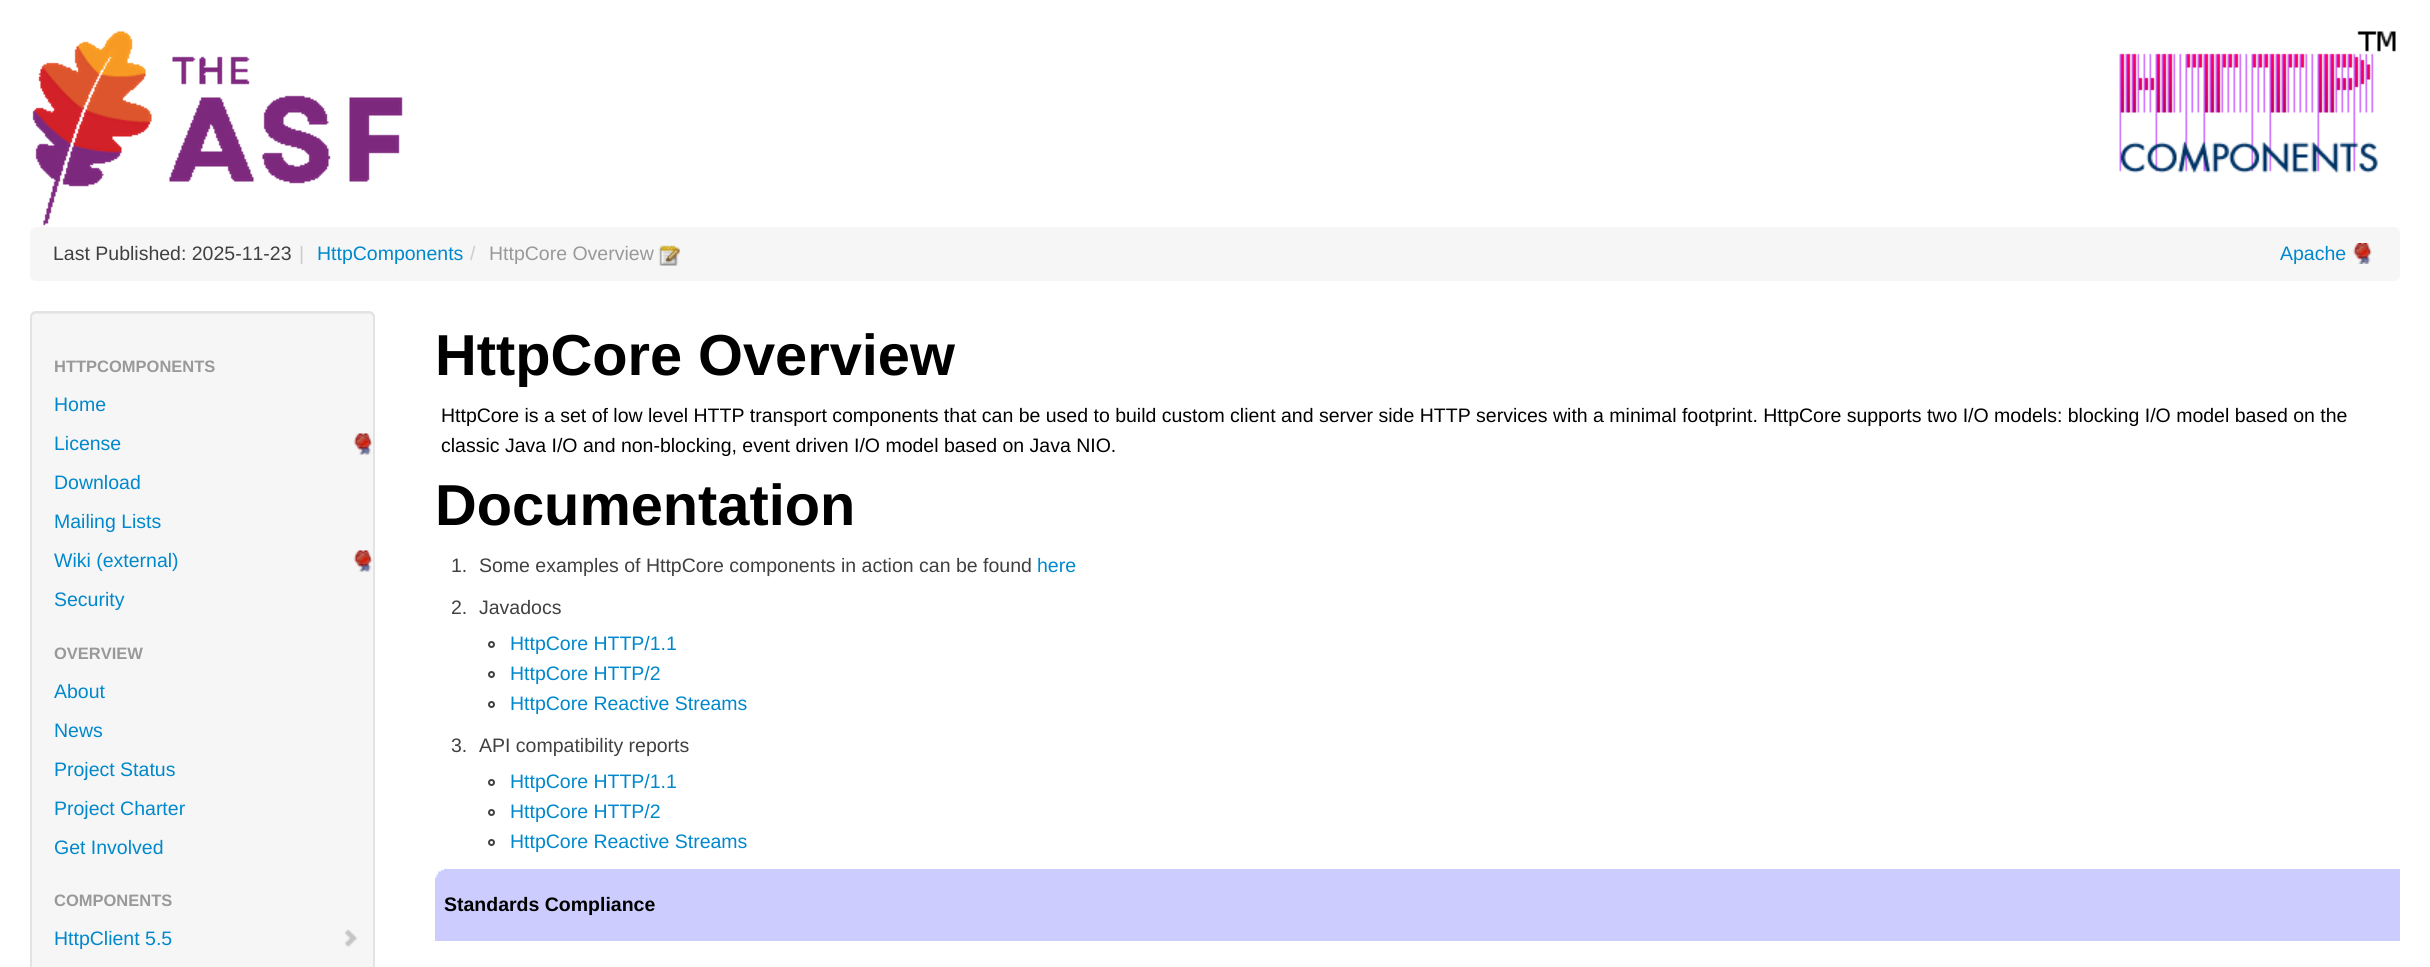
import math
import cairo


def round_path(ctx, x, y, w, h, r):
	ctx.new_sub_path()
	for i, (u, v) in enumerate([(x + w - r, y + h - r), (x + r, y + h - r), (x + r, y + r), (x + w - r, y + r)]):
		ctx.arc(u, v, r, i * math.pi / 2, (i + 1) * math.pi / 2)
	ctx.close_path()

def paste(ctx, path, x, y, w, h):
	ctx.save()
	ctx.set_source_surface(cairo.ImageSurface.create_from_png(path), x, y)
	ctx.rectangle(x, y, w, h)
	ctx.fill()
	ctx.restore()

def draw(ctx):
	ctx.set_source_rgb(1, 1, 1)
	ctx.paint()
	paste(ctx, 'media/1.png', 32, 31, 371, 195)
	paste(ctx, 'media/2.png', 2119, 31, 277, 142)
	ctx.set_source_rgb(0.961, 0.961, 0.961)
	round_path(ctx, 30, 227, 2370, 54, 6)
	ctx.fill()
	ctx.select_font_face('Liberation Sans')
	ctx.set_font_size(19.5)
	ctx.set_source_rgb(0.251, 0.251, 0.251)
	ctx.move_to(53, 260)
	ctx.show_text('Last Published: 2025-11-23')
	ctx.set_source_rgb(0.8, 0.8, 0.8)
	ctx.move_to(299, 260)
	ctx.show_text('|')
	ctx.set_source_rgb(0, 0.533, 0.8)
	ctx.move_to(317, 260)
	ctx.show_text('HttpComponents')
	ctx.set_source_rgb(0.8, 0.8, 0.8)
	ctx.move_to(470, 260)
	ctx.show_text('/')
	ctx.set_source_rgb(0.6, 0.6, 0.6)
	ctx.move_to(489, 260)
	ctx.show_text('HttpCore Overview')
	paste(ctx, 'media/3.png', 658, 245, 22, 21)
	ctx.set_source_rgb(0, 0.533, 0.8)
	ctx.move_to(2280, 260)
	ctx.show_text('Apache')
	paste(ctx, 'media/4.png', 2353, 243, 19, 21)
	ctx.set_source_rgb(0.961, 0.961, 0.961)
	round_path(ctx, 30, 311, 345, 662, 6)
	ctx.fill()
	ctx.set_source_rgb(0.914, 0.914, 0.914)
	ctx.new_path()
	ctx.move_to(36, 314)
	ctx.line_to(369, 314)
	ctx.curve_to(371, 314, 374, 316, 374, 318)
	ctx.curve_to(374, 315, 372, 312, 369, 312)
	ctx.line_to(37, 312)
	ctx.curve_to(34, 312, 32, 315, 32, 318)
	ctx.curve_to(32, 316, 34, 314, 36, 314)
	ctx.close_path()
	ctx.fill()
	round_path(ctx, 31, 312, 343, 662, 5)
	ctx.set_source_rgb(0.89, 0.89, 0.89)
	ctx.stroke()
	ctx.select_font_face('Liberation Sans', cairo.FONT_SLANT_NORMAL, cairo.FONT_WEIGHT_BOLD)
	ctx.set_font_size(16.5)
	ctx.set_source_rgb(0.6, 0.6, 0.6)
	ctx.move_to(54, 372)
	ctx.show_text('HTTPCOMPONENTS')
	ctx.select_font_face('Liberation Sans')
	ctx.set_font_size(19.5)
	ctx.set_source_rgb(0, 0.533, 0.8)
	ctx.move_to(54, 411)
	ctx.show_text('Home')
	paste(ctx, 'media/5.png', 353, 433, 20, 22)
	for x, y, s in [
		(54, 450, 'License'),
		(54, 489, 'Download'),
		(54, 528, 'Mailing Lists'),
	]:
		ctx.move_to(x, y)
		ctx.show_text(s)
	paste(ctx, 'media/5.png', 353, 550, 20, 22)
	ctx.move_to(54, 567)
	ctx.show_text('Wiki (external)')
	ctx.move_to(54, 606)
	ctx.show_text('Security')
	ctx.select_font_face('Liberation Sans', cairo.FONT_SLANT_NORMAL, cairo.FONT_WEIGHT_BOLD)
	ctx.set_font_size(16.5)
	ctx.set_source_rgb(0.6, 0.6, 0.6)
	ctx.move_to(54, 659)
	ctx.show_text('OVERVIEW')
	ctx.select_font_face('Liberation Sans')
	ctx.set_font_size(19.5)
	ctx.set_source_rgb(0, 0.533, 0.8)
	for x, y, s in [
		(54, 698, 'About'),
		(54, 737, 'News'),
		(54, 776, 'Project Status'),
		(54, 815, 'Project Charter'),
		(54, 854, 'Get Involved'),
	]:
		ctx.move_to(x, y)
		ctx.show_text(s)
	ctx.select_font_face('Liberation Sans', cairo.FONT_SLANT_NORMAL, cairo.FONT_WEIGHT_BOLD)
	ctx.set_font_size(16.5)
	ctx.set_source_rgb(0.6, 0.6, 0.6)
	ctx.move_to(54, 906)
	ctx.show_text('COMPONENTS')
	ctx.select_font_face('Liberation Sans')
	ctx.set_font_size(19.5)
	ctx.set_source_rgb(0, 0.533, 0.8)
	ctx.move_to(54, 945)
	ctx.show_text('HttpClient 5.5')
	paste(ctx, 'media/6.png', 345, 929, 13, 18)
	ctx.select_font_face('Liberation Sans', cairo.FONT_SLANT_NORMAL, cairo.FONT_WEIGHT_BOLD)
	ctx.set_font_size(57.75)
	ctx.set_source_rgb(0, 0, 0)
	ctx.move_to(435, 375)
	ctx.show_text('HttpCore Overview')
	ctx.select_font_face('Liberation Sans')
	ctx.set_font_size(19.5)
	ctx.move_to(441, 422)
	ctx.show_text('HttpCore is a set of low level HTTP transport components that can be used to build custom client and server side HTTP services with a minimal footprint. HttpCore supports two I/O models: blocking I/O model based on the')
	ctx.move_to(441, 452)
	ctx.show_text('classic Java I/O and non-blocking, event driven I/O model based on Java NIO.')
	ctx.select_font_face('Liberation Sans', cairo.FONT_SLANT_NORMAL, cairo.FONT_WEIGHT_BOLD)
	ctx.set_font_size(57.75)
	ctx.move_to(435, 525)
	ctx.show_text('Documentation')
	ctx.select_font_face('Liberation Sans')
	ctx.set_font_size(19.5)
	ctx.set_source_rgb(0.251, 0.251, 0.251)
	ctx.move_to(451, 572)
	ctx.show_text('1.')
	ctx.move_to(479, 572)
	ctx.show_text('Some examples of HttpCore components in action can be found')
	ctx.set_source_rgb(0, 0.533, 0.8)
	ctx.move_to(1037, 572)
	ctx.show_text('here')
	ctx.set_source_rgb(0.251, 0.251, 0.251)
	ctx.move_to(451, 614)
	ctx.show_text('2.')
	ctx.move_to(479, 614)
	ctx.show_text('Javadocs')
	ctx.new_path()
	ctx.arc(491.5, 644.5, 2.5, 0, 2 * math.pi)
	ctx.stroke()
	ctx.set_source_rgb(0, 0.533, 0.8)
	ctx.move_to(510, 650)
	ctx.show_text('HttpCore HTTP/1.1')
	ctx.new_path()
	ctx.arc(491.5, 674.5, 2.5, 0, 2 * math.pi)
	ctx.set_source_rgb(0.251, 0.251, 0.251)
	ctx.stroke()
	ctx.set_source_rgb(0, 0.533, 0.8)
	ctx.move_to(510, 680)
	ctx.show_text('HttpCore HTTP/2')
	ctx.new_path()
	ctx.arc(491.5, 704.5, 2.5, 0, 2 * math.pi)
	ctx.set_source_rgb(0.251, 0.251, 0.251)
	ctx.stroke()
	ctx.set_source_rgb(0, 0.533, 0.8)
	ctx.move_to(510, 710)
	ctx.show_text('HttpCore Reactive Streams')
	ctx.set_source_rgb(0.251, 0.251, 0.251)
	ctx.move_to(451, 752)
	ctx.show_text('3.')
	ctx.move_to(479, 752)
	ctx.show_text('API compatibility reports')
	ctx.new_path()
	ctx.arc(491.5, 782.5, 2.5, 0, 2 * math.pi)
	ctx.stroke()
	ctx.set_source_rgb(0, 0.533, 0.8)
	ctx.move_to(510, 788)
	ctx.show_text('HttpCore HTTP/1.1')
	ctx.new_path()
	ctx.arc(491.5, 812.5, 2.5, 0, 2 * math.pi)
	ctx.set_source_rgb(0.251, 0.251, 0.251)
	ctx.stroke()
	ctx.set_source_rgb(0, 0.533, 0.8)
	ctx.move_to(510, 818)
	ctx.show_text('HttpCore HTTP/2')
	ctx.new_path()
	ctx.arc(491.5, 842.5, 2.5, 0, 2 * math.pi)
	ctx.set_source_rgb(0.251, 0.251, 0.251)
	ctx.stroke()
	ctx.set_source_rgb(0, 0.533, 0.8)
	ctx.move_to(510, 848)
	ctx.show_text('HttpCore Reactive Streams')
	ctx.set_source_rgb(0.8, 0.8, 1)
	ctx.rectangle(435, 869, 1965, 72)
	ctx.fill()
	paste(ctx, 'media/7.png', 435, 869, 9, 9)
	ctx.select_font_face('Liberation Sans', cairo.FONT_SLANT_NORMAL, cairo.FONT_WEIGHT_BOLD)
	ctx.set_source_rgb(0, 0, 0)
	ctx.move_to(444, 911)
	ctx.show_text('Standards Compliance')


surface = cairo.ImageSurface(cairo.FORMAT_RGB24, 2430, 967)
ctx = cairo.Context(surface)
options = cairo.FontOptions()
options.set_hint_metrics(cairo.HINT_METRICS_OFF)
options.set_hint_style(cairo.HINT_STYLE_NONE)
ctx.set_font_options(options)
ctx.set_miter_limit(4)
draw(ctx)
surface.write_to_png('image.png')
